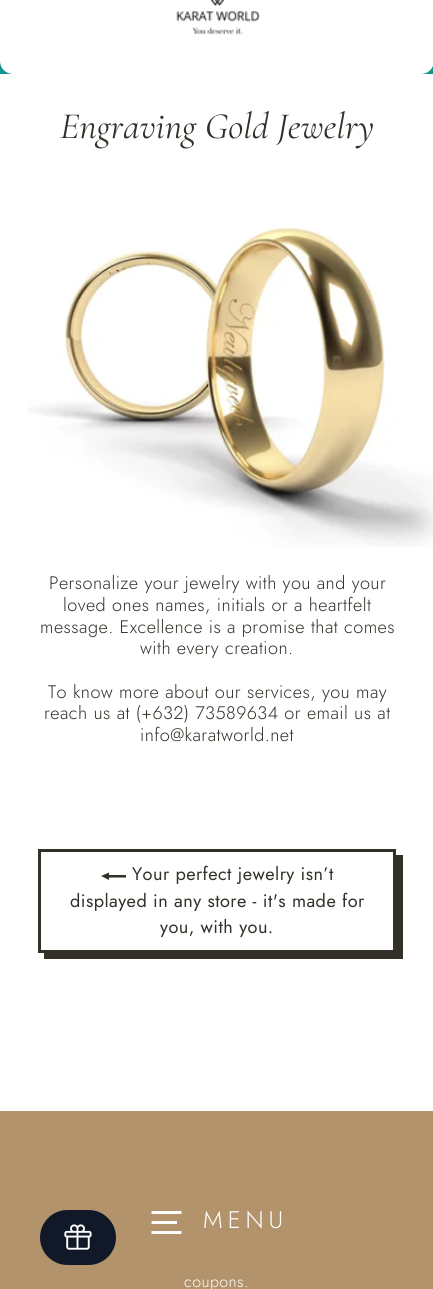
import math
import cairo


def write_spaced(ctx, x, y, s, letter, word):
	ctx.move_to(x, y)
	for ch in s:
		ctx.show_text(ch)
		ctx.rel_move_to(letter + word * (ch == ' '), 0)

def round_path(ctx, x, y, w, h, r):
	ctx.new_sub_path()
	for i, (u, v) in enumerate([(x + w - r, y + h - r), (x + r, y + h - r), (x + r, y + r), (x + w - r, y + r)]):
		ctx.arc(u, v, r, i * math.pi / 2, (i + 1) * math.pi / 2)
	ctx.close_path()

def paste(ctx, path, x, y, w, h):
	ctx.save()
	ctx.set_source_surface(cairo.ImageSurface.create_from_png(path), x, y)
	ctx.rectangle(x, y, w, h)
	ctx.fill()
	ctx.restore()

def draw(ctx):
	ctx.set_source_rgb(1, 1, 1)
	ctx.paint()
	ctx.select_font_face('Cormorant', cairo.FONT_SLANT_ITALIC)
	ctx.set_font_size(37.25)
	ctx.set_source_rgb(0.2, 0.188, 0.161)
	ctx.move_to(60, 138)
	ctx.show_text('Engraving Gold Jewelry')
	paste(ctx, 'media/1.png', 27, 227, 406, 320)
	ctx.select_font_face('Jost Light')
	ctx.set_font_size(18.1)
	for x, y, s in [
		(49, 589, 'Personalize your jewelry with you and your'),
		(63, 611, 'loved ones names, initials or a heartfelt'),
		(40, 633, 'message. Excellence is a promise that comes'),
		(140, 654, 'with every creation.'),
		(48, 698, 'To know more about our services, you may'),
		(44, 719, 'reach us at (+632) 73589634 or email us at'),
		(140, 741, 'info@karatworld.net'),
	]:
		write_spaced(ctx, x, y, s, 0.45, 0)
	ctx.new_path()
	ctx.move_to(44, 952)
	ctx.line_to(44, 959)
	ctx.line_to(403, 959)
	ctx.line_to(403, 855)
	ctx.line_to(396, 855)
	ctx.line_to(396, 952)
	ctx.close_path()
	ctx.fill()
	ctx.rectangle(39.5, 850.5, 355, 101)
	ctx.set_line_width(3)
	ctx.stroke()
	ctx.new_path()
	ctx.move_to(126, 875)
	ctx.line_to(126, 877.5)
	ctx.line_to(109, 877.5)
	ctx.line_to(109, 880)
	ctx.line_to(101, 876)
	ctx.line_to(109, 872.5)
	ctx.line_to(109, 875)
	ctx.close_path()
	ctx.fill()
	ctx.select_font_face('Jost')
	for x, y, s in [
		(132, 880, 'Your perfect jewelry isn’t'),
		(70, 907, 'displayed in any store - it\'s made for'),
		(160, 933, 'you, with you.'),
	]:
		write_spaced(ctx, x, y, s, 0.45, 0)
	ctx.set_source_rgb(0.071, 0.588, 0.557)
	ctx.rectangle(0, 61, 433, 13)
	ctx.fill()
	ctx.set_source_rgb(1, 1, 1)
	round_path(ctx, 0, -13, 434, 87, 13)
	ctx.fill()
	paste(ctx, 'media/2.png', 176, 0, 84, 35)
	ctx.set_source_rgb(0.698, 0.576, 0.42)
	ctx.rectangle(0, 1111, 433, 178)
	ctx.fill()
	ctx.new_path()
	ctx.move_to(151.5, 1212.5)
	ctx.line_to(181.5, 1212.5)
	ctx.move_to(151.5, 1222.5)
	ctx.line_to(177, 1222.5)
	ctx.move_to(151.5, 1232.5)
	ctx.line_to(181.5, 1232.5)
	ctx.set_source_rgb(1, 1, 1)
	ctx.set_line_width(2.9)
	ctx.stroke()
	ctx.select_font_face('Jost Light')
	ctx.set_font_size(24)
	write_spaced(ctx, 203, 1228, 'MENU', 5, 0)
	ctx.set_font_size(16)
	write_spaced(ctx, 184, 1287, 'coupons.', 0.45, 0)
	ctx.set_source_rgb(0.067, 0.094, 0.153)
	round_path(ctx, 40, 1210, 76, 55, 27.5)
	ctx.fill()
	paste(ctx, 'media/3.png', 64, 1224, 28, 26)


surface = cairo.ImageSurface(cairo.FORMAT_RGB24, 433, 1289)
ctx = cairo.Context(surface)
options = cairo.FontOptions()
options.set_hint_metrics(cairo.HINT_METRICS_OFF)
options.set_hint_style(cairo.HINT_STYLE_NONE)
ctx.set_font_options(options)
ctx.set_miter_limit(4)
draw(ctx)
surface.write_to_png('image.png')
